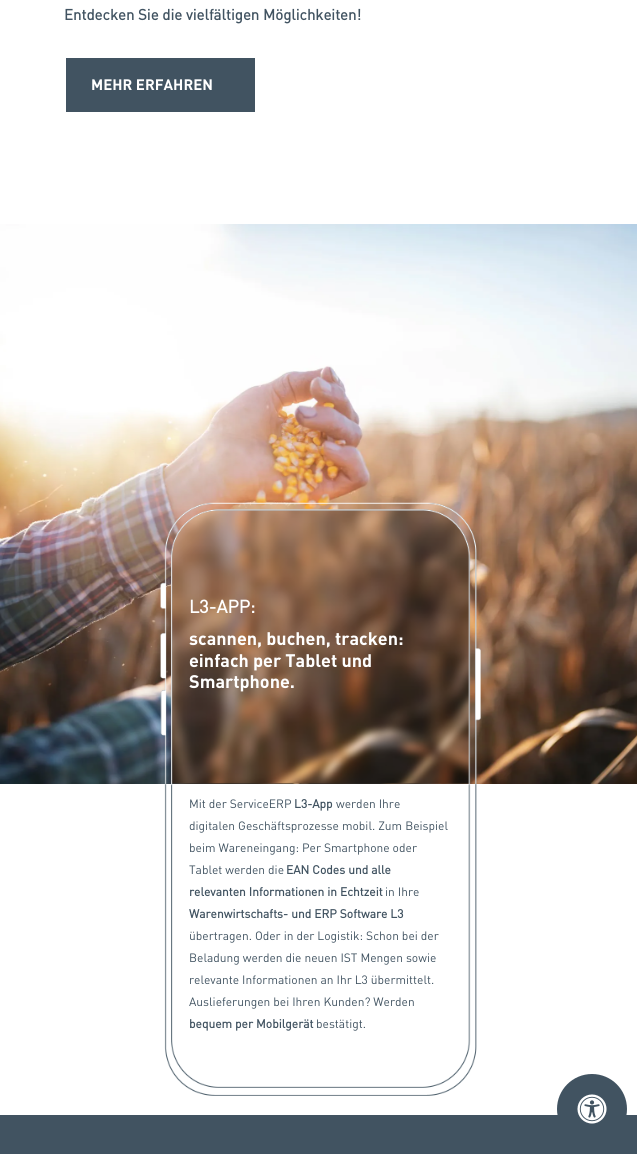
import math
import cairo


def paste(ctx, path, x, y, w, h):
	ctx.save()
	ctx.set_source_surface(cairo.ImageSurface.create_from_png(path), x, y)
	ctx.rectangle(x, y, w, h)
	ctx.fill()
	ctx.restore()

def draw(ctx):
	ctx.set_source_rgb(1, 1, 1)
	ctx.paint()
	ctx.select_font_face('DIN', cairo.FONT_SLANT_NORMAL, cairo.FONT_WEIGHT_BOLD)
	ctx.set_font_size(15)
	ctx.set_source_rgb(0.255, 0.325, 0.38)
	ctx.move_to(64, 20)
	ctx.show_text('Entdecken Sie die vielfältigen Möglichkeiten!')
	ctx.rectangle(66, 58, 189, 54)
	ctx.fill()
	ctx.select_font_face('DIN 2', cairo.FONT_SLANT_NORMAL, cairo.FONT_WEIGHT_BOLD)
	ctx.set_source_rgb(1, 1, 1)
	ctx.move_to(91, 90)
	ctx.show_text('MEHR ERFAHREN')
	paste(ctx, 'media/1.png', 0, 224, 637, 560)
	ctx.select_font_face('DIN')
	ctx.set_font_size(12)
	ctx.set_source_rgb(0.255, 0.325, 0.38)
	ctx.move_to(189, 808)
	ctx.show_text('Mit der ServiceERP')
	ctx.select_font_face('DIN', cairo.FONT_SLANT_NORMAL, cairo.FONT_WEIGHT_BOLD)
	ctx.move_to(294, 808)
	ctx.show_text('L3-App')
	ctx.select_font_face('DIN')
	for x, y, s in [
		(336, 808, 'werden Ihre'),
		(189, 830, 'digitalen Geschäftsprozesse mobil. Zum Beispiel'),
		(189, 852, 'beim Wareneingang: Per Smartphone oder'),
		(189, 874, 'Tablet werden die'),
	]:
		ctx.move_to(x, y)
		ctx.show_text(s)
	ctx.select_font_face('DIN', cairo.FONT_SLANT_NORMAL, cairo.FONT_WEIGHT_BOLD)
	ctx.move_to(286, 874)
	ctx.show_text('EAN Codes und alle')
	ctx.move_to(189, 896)
	ctx.show_text('relevanten Informationen in Echtzeit')
	ctx.select_font_face('DIN')
	ctx.move_to(385, 896)
	ctx.show_text('in Ihre')
	ctx.select_font_face('DIN', cairo.FONT_SLANT_NORMAL, cairo.FONT_WEIGHT_BOLD)
	ctx.move_to(189, 918)
	ctx.show_text('Warenwirtschafts- und ERP Software L3')
	ctx.select_font_face('DIN')
	for x, y, s in [
		(189, 940, 'übertragen. Oder in der Logistik: Schon bei der'),
		(189, 962, 'Beladung werden die neuen IST Mengen sowie'),
		(189, 984, 'relevante Informationen an Ihr L3 übermittelt.'),
		(189, 1006, 'Auslieferungen bei Ihren Kunden? Werden'),
	]:
		ctx.move_to(x, y)
		ctx.show_text(s)
	ctx.select_font_face('DIN', cairo.FONT_SLANT_NORMAL, cairo.FONT_WEIGHT_BOLD)
	ctx.move_to(189, 1028)
	ctx.show_text('bequem per Mobilgerät')
	ctx.select_font_face('DIN')
	ctx.move_to(316, 1028)
	ctx.show_text('bestätigt.')
	paste(ctx, 'media/2.png', 160, 502, 321, 594)
	ctx.select_font_face('DIN', cairo.FONT_SLANT_NORMAL, cairo.FONT_WEIGHT_BOLD)
	ctx.set_font_size(18)
	ctx.set_source_rgb(1, 1, 1)
	ctx.move_to(189, 613)
	ctx.show_text('L3-APP:')
	ctx.select_font_face('DIN 2', cairo.FONT_SLANT_NORMAL, cairo.FONT_WEIGHT_BOLD)
	for x, y, s in [
		(189, 645, 'scannen, buchen, tracken:'),
		(189, 667, 'einfach per Tablet und'),
		(189, 688, 'Smartphone.'),
	]:
		ctx.move_to(x, y)
		ctx.show_text(s)
	ctx.set_source_rgb(0.255, 0.325, 0.38)
	ctx.rectangle(0, 1115, 637, 39)
	ctx.fill()
	ctx.arc(592, 1109, 35, 0, 2 * math.pi)
	ctx.fill()
	paste(ctx, 'media/3.png', 577, 1094, 30, 30)


surface = cairo.ImageSurface(cairo.FORMAT_RGB24, 637, 1154)
ctx = cairo.Context(surface)
options = cairo.FontOptions()
options.set_hint_metrics(cairo.HINT_METRICS_OFF)
options.set_hint_style(cairo.HINT_STYLE_NONE)
ctx.set_font_options(options)
ctx.set_miter_limit(4)
draw(ctx)
surface.write_to_png('image.png')
